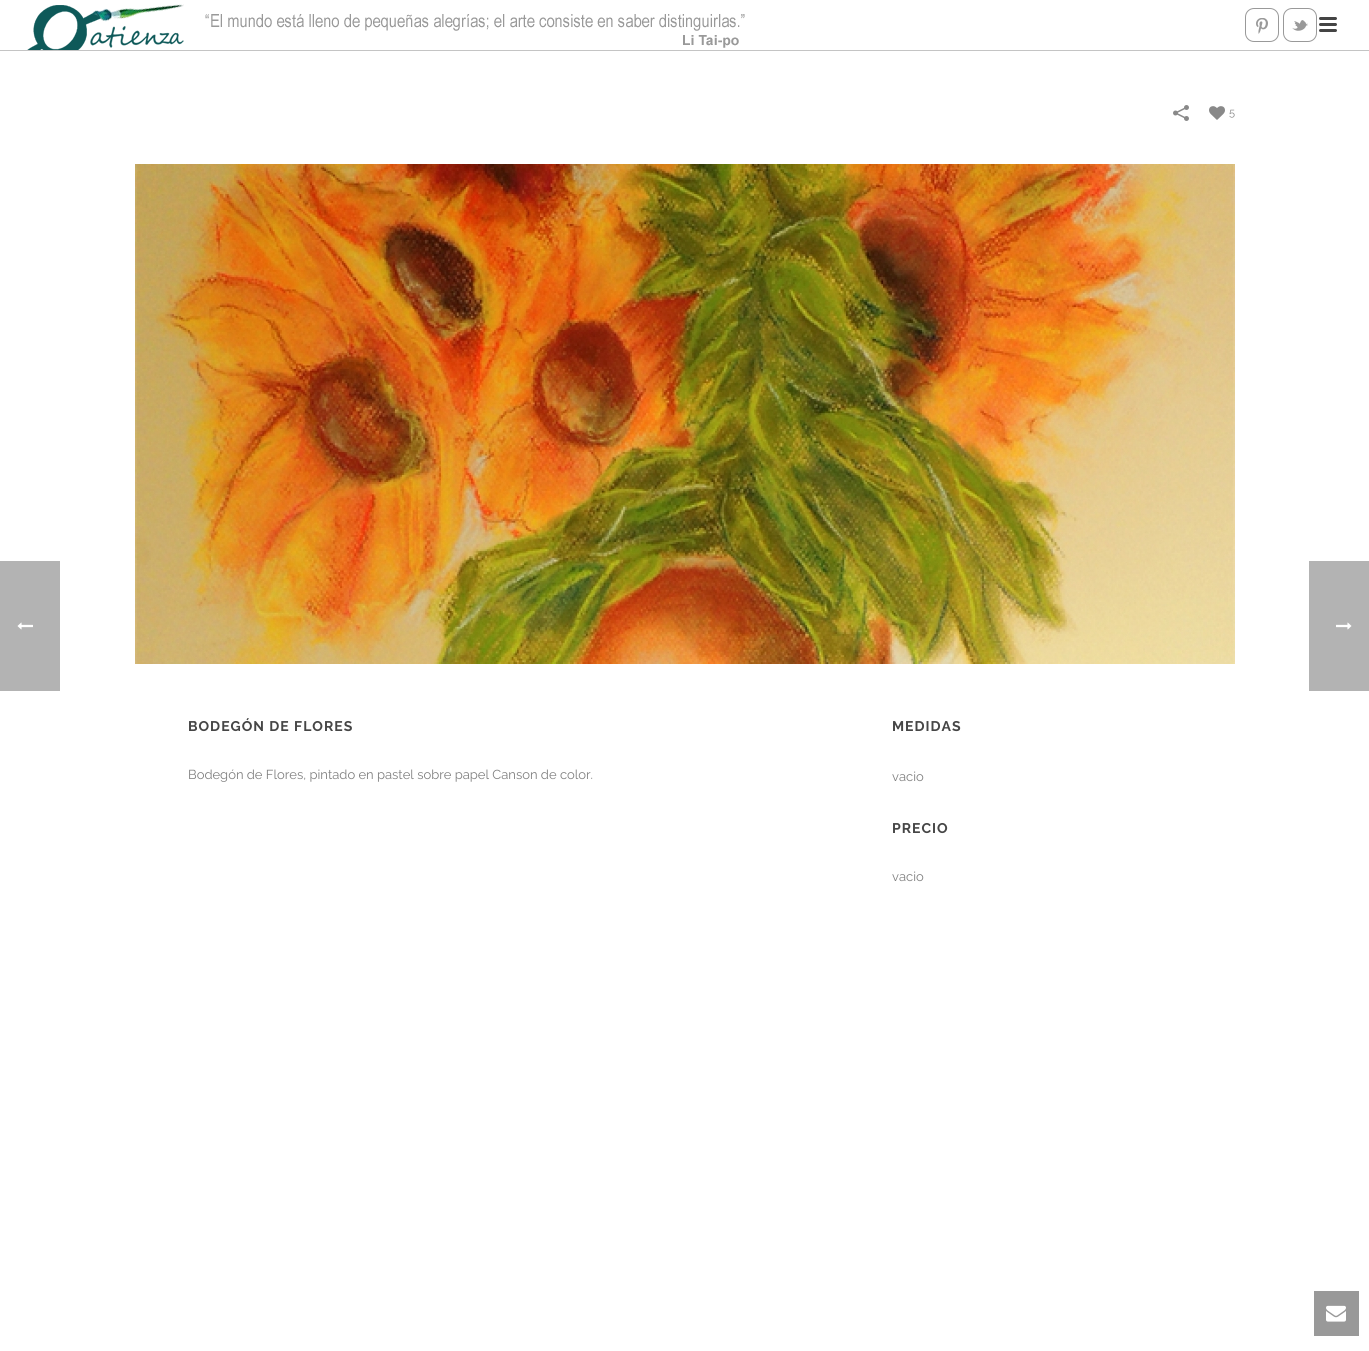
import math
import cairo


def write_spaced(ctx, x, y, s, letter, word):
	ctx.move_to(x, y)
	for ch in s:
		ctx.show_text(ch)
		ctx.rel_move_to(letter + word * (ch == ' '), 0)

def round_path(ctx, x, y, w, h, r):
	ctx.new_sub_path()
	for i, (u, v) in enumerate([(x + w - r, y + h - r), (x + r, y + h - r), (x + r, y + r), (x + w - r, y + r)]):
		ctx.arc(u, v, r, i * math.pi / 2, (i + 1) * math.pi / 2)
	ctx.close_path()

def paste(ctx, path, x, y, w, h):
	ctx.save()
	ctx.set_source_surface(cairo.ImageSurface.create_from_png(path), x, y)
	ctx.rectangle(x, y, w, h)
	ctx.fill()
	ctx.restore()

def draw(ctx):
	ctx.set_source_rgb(1, 1, 1)
	ctx.paint()
	ctx.set_source_rgb(0.702, 0.702, 0.702)
	ctx.rectangle(0, 561, 60, 130)
	ctx.fill()
	paste(ctx, 'media/1.png', 17, 622, 16, 8)
	ctx.set_source_rgb(0.769, 0.769, 0.769)
	ctx.rectangle(0, 50, 1369, 1)
	ctx.fill()
	paste(ctx, 'media/2.png', 27, 4, 718, 46)
	ctx.set_source_rgb(0.267, 0.267, 0.267)
	round_path(ctx, 1319, 17, 18, 3, 1.5)
	ctx.fill()
	round_path(ctx, 1319, 23, 18, 3, 1.5)
	ctx.fill()
	round_path(ctx, 1319, 29, 18, 3, 1.5)
	ctx.fill()
	round_path(ctx, 1245.5, 8.5, 33, 33, 8.5)
	ctx.set_source_rgb(0.6, 0.6, 0.6)
	ctx.set_line_width(1)
	ctx.stroke()
	paste(ctx, 'media/3.png', 1256, 18, 12, 16)
	round_path(ctx, 1283.5, 8.5, 33, 33, 8.5)
	ctx.stroke()
	paste(ctx, 'media/4.png', 1292, 20, 16, 11)
	paste(ctx, 'media/5.png', 1173, 105, 16, 16)
	paste(ctx, 'media/6.png', 1209, 106, 16, 14)
	ctx.select_font_face('Raleway')
	ctx.set_font_size(11)
	ctx.set_source_rgb(0.537, 0.537, 0.537)
	ctx.move_to(1229, 116)
	ctx.show_text('5')
	paste(ctx, 'media/7.png', 135, 164, 1100, 500)
	ctx.select_font_face('Raleway', cairo.FONT_SLANT_NORMAL, cairo.FONT_WEIGHT_BOLD)
	ctx.set_font_size(14)
	ctx.set_source_rgb(0.275, 0.275, 0.275)
	write_spaced(ctx, 188, 731, 'BODEGÓN DE FLORES', 1, 0)
	ctx.select_font_face('Raleway')
	ctx.set_font_size(13)
	ctx.set_source_rgb(0.502, 0.502, 0.502)
	ctx.move_to(188, 779)
	ctx.show_text('Bodegón de Flores, pintado en pastel sobre papel Canson de color.')
	ctx.select_font_face('Raleway', cairo.FONT_SLANT_NORMAL, cairo.FONT_WEIGHT_BOLD)
	ctx.set_font_size(14)
	ctx.set_source_rgb(0.275, 0.275, 0.275)
	write_spaced(ctx, 892, 731, 'MEDIDAS', 1, 0)
	ctx.select_font_face('Raleway')
	ctx.set_font_size(13)
	ctx.set_source_rgb(0.502, 0.502, 0.502)
	ctx.move_to(892, 781)
	ctx.show_text('vacio')
	ctx.select_font_face('Raleway', cairo.FONT_SLANT_NORMAL, cairo.FONT_WEIGHT_BOLD)
	ctx.set_font_size(14)
	ctx.set_source_rgb(0.275, 0.275, 0.275)
	write_spaced(ctx, 892, 833, 'PRECIO', 1, 0)
	ctx.select_font_face('Raleway')
	ctx.set_font_size(13)
	ctx.set_source_rgb(0.502, 0.502, 0.502)
	ctx.move_to(892, 881)
	ctx.show_text('vacio')
	ctx.set_source_rgb(0.702, 0.702, 0.702)
	ctx.rectangle(1309, 561, 60, 130)
	ctx.fill()
	paste(ctx, 'media/8.png', 1336, 622, 16, 8)
	ctx.set_source_rgb(0.6, 0.6, 0.6)
	ctx.rectangle(1314, 1291, 45, 45)
	ctx.fill()
	paste(ctx, 'media/9.png', 1326, 1305, 20, 17)


surface = cairo.ImageSurface(cairo.FORMAT_RGB24, 1369, 1351)
ctx = cairo.Context(surface)
options = cairo.FontOptions()
options.set_hint_metrics(cairo.HINT_METRICS_OFF)
options.set_hint_style(cairo.HINT_STYLE_NONE)
ctx.set_font_options(options)
ctx.set_miter_limit(4)
draw(ctx)
surface.write_to_png('image.png')
